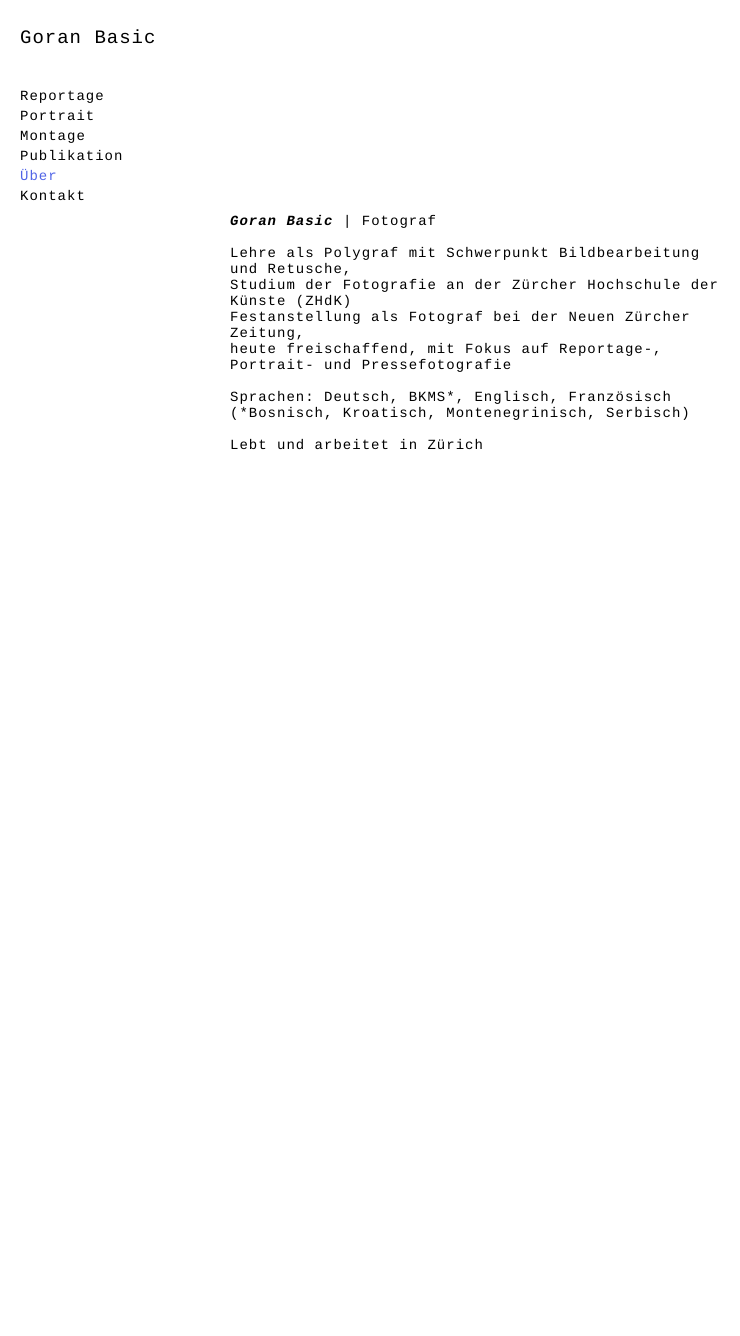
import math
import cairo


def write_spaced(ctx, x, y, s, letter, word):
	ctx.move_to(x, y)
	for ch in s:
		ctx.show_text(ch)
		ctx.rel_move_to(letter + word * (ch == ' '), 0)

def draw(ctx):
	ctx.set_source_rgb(1, 1, 1)
	ctx.paint()
	ctx.select_font_face('Liberation Mono')
	ctx.set_font_size(19)
	ctx.set_source_rgb(0, 0, 0)
	write_spaced(ctx, 20, 43, 'Goran Basic', 1, 0)
	ctx.set_font_size(14)
	for x, y, s in [
		(20, 100, 'Reportage'),
		(20, 120, 'Portrait'),
		(20, 140, 'Montage'),
		(20, 160, 'Publikation'),
	]:
		write_spaced(ctx, x, y, s, 1, 0)
	ctx.set_source_rgb(0.314, 0.392, 0.902)
	write_spaced(ctx, 20, 180, 'Über', 1, 0)
	ctx.set_source_rgb(0, 0, 0)
	write_spaced(ctx, 20, 200, 'Kontakt', 1, 0)
	ctx.select_font_face('Liberation Mono', cairo.FONT_SLANT_ITALIC, cairo.FONT_WEIGHT_BOLD)
	write_spaced(ctx, 230, 225, 'Goran Basic', 1, 0)
	ctx.select_font_face('Liberation Mono')
	for x, y, s in [
		(343, 225, '| Fotograf'),
		(230, 257, 'Lehre als Polygraf mit Schwerpunkt Bildbearbeitung'),
		(230, 273, 'und Retusche,'),
		(230, 289, 'Studium der Fotografie an der Zürcher Hochschule der'),
		(230, 305, 'Künste (ZHdK)'),
		(230, 321, 'Festanstellung als Fotograf bei der Neuen Zürcher'),
		(230, 337, 'Zeitung,'),
		(230, 353, 'heute freischaffend, mit Fokus auf Reportage-,'),
		(230, 369, 'Portrait- und Pressefotografie'),
		(230, 401, 'Sprachen: Deutsch, BKMS*, Englisch, Französisch'),
		(230, 417, '(*Bosnisch, Kroatisch, Montenegrinisch, Serbisch)'),
		(230, 449, 'Lebt und arbeitet in Zürich'),
	]:
		write_spaced(ctx, x, y, s, 1, 0)


surface = cairo.ImageSurface(cairo.FORMAT_RGB24, 740, 1336)
ctx = cairo.Context(surface)
options = cairo.FontOptions()
options.set_hint_metrics(cairo.HINT_METRICS_OFF)
options.set_hint_style(cairo.HINT_STYLE_NONE)
ctx.set_font_options(options)
ctx.set_miter_limit(4)
draw(ctx)
surface.write_to_png('image.png')
